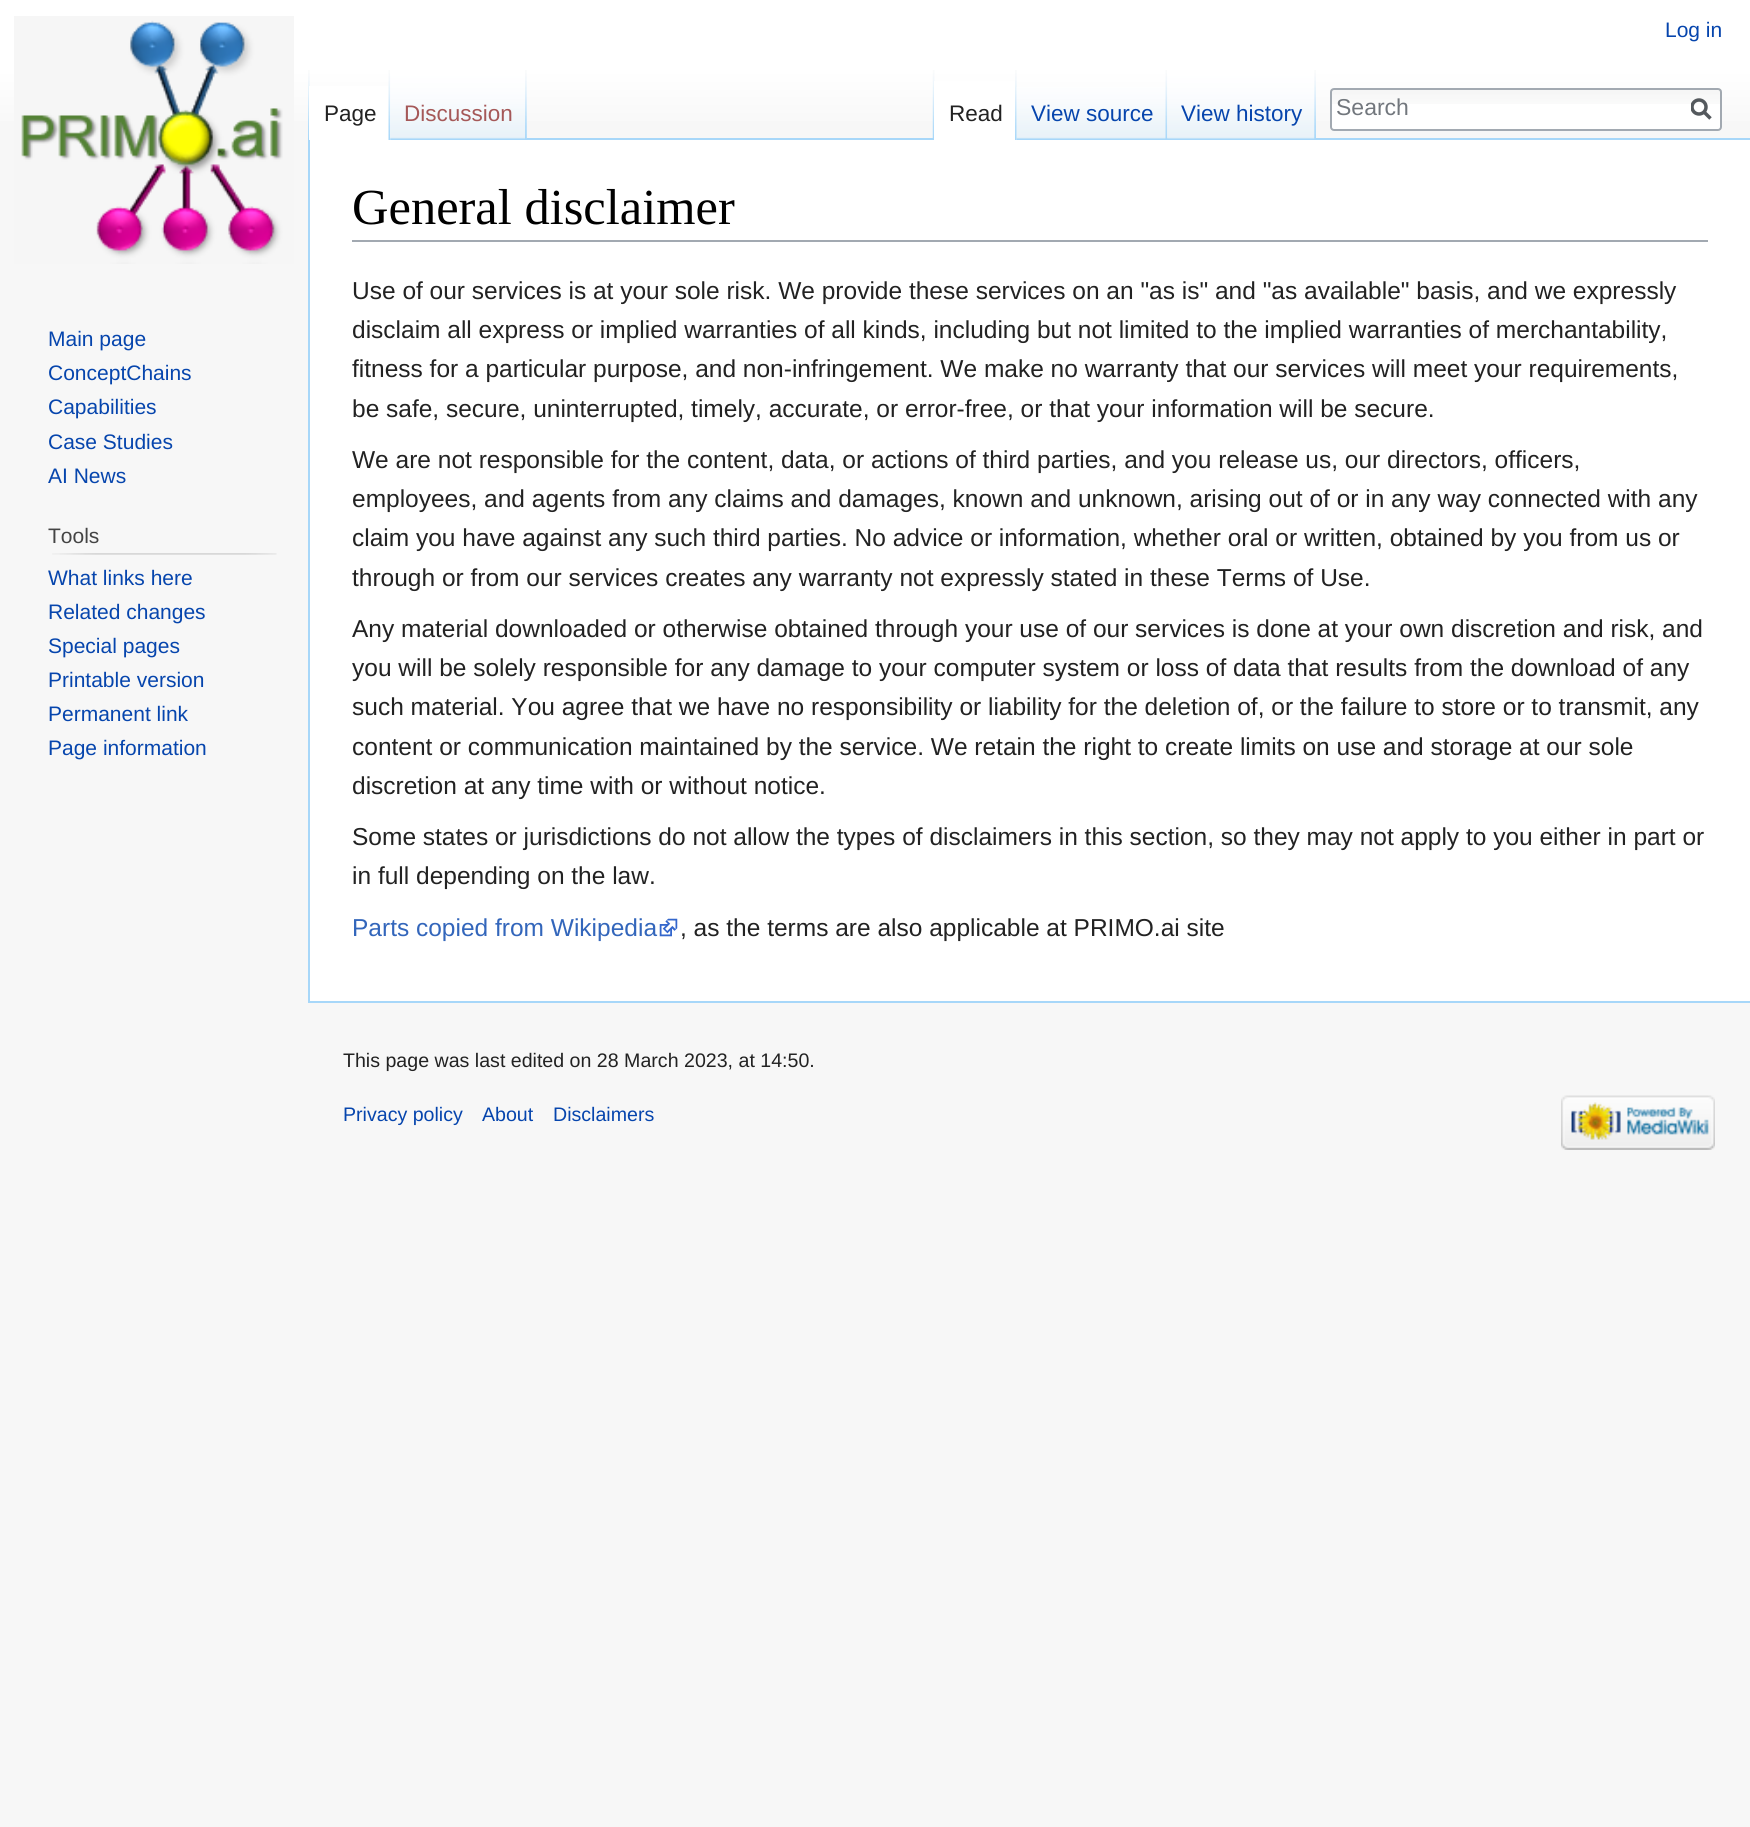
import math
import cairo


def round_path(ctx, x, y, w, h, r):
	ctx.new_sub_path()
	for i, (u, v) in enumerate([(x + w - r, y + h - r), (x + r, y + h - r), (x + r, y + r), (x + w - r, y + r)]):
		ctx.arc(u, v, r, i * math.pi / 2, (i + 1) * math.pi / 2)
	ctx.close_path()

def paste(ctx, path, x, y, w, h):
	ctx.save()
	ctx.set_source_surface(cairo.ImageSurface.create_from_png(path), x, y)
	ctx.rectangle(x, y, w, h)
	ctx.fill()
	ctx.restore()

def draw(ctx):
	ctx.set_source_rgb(0.965, 0.965, 0.965)
	ctx.paint()
	gradient = cairo.LinearGradient(875, 0, 875, 140)
	gradient.add_color_stop_rgba(0.5, 1, 1, 1, 1)
	gradient.add_color_stop_rgba(1, 0.965, 0.965, 0.965, 1)
	ctx.set_source(gradient)
	ctx.rectangle(0, 0, 1750, 121)
	ctx.fill()
	ctx.select_font_face('Liberation Sans')
	ctx.set_font_size(21)
	ctx.set_source_rgb(0.024, 0.271, 0.678)
	ctx.move_to(1665, 37)
	ctx.show_text('Log in')
	paste(ctx, 'media/1.png', 308, 70, 2, 68)
	paste(ctx, 'media/2.png', 526, 70, 1, 68)
	ctx.set_source_rgb(0.655, 0.843, 0.976)
	ctx.rectangle(308, 1001, 1442, 2)
	ctx.rectangle(308, 138, 2, 865)
	ctx.fill()
	ctx.set_source_rgb(1, 1, 1)
	ctx.rectangle(309, 86, 82, 54)
	ctx.fill()
	paste(ctx, 'media/3.png', 388, 70, 3, 70)
	ctx.set_font_size(22.5)
	ctx.set_source_rgb(0.133, 0.133, 0.133)
	ctx.move_to(324, 121)
	ctx.show_text('Page')
	ctx.set_source_rgb(0.655, 0.843, 0.976)
	ctx.rectangle(526, 138, 1224, 2)
	ctx.fill()
	paste(ctx, 'media/4.png', 390, 70, 137, 70)
	paste(ctx, 'media/5.png', 525, 70, 2, 69)
	ctx.set_source_rgb(0.647, 0.345, 0.345)
	ctx.move_to(404, 121)
	ctx.show_text('Discussion')
	paste(ctx, 'media/6.png', 932, 70, 3, 68)
	ctx.set_source_rgb(1, 1, 1)
	ctx.rectangle(934, 81, 83, 59)
	ctx.fill()
	paste(ctx, 'media/7.png', 1015, 70, 2, 70)
	ctx.set_source_rgb(0.133, 0.133, 0.133)
	ctx.move_to(949, 121)
	ctx.show_text('Read')
	paste(ctx, 'media/8.png', 1016, 87, 152, 53)
	paste(ctx, 'media/9.png', 1165, 70, 3, 69)
	ctx.set_source_rgb(0.024, 0.271, 0.678)
	ctx.move_to(1031, 121)
	ctx.show_text('View source')
	paste(ctx, 'media/10.png', 1167, 70, 148, 69)
	paste(ctx, 'media/11.png', 1314, 70, 2, 69)
	ctx.move_to(1181, 121)
	ctx.show_text('View history')
	ctx.set_source_rgb(1, 1, 1)
	round_path(ctx, 1330, 88, 392, 43, 4)
	ctx.fill()
	paste(ctx, 'media/12.png', 1330, 89, 392, 15)
	round_path(ctx, 1331, 89, 390, 41, 3)
	ctx.set_source_rgb(0.635, 0.663, 0.694)
	ctx.stroke()
	ctx.set_font_size(23)
	ctx.set_source_rgb(0.447, 0.467, 0.49)
	ctx.move_to(1336, 115)
	ctx.show_text('Search')
	ctx.new_path()
	ctx.move_to(1710.5, 118.5)
	ctx.line_to(1703.5, 111.5)
	ctx.set_source_rgb(0.329, 0.349, 0.365)
	ctx.set_line_width(3.5)
	ctx.stroke()
	ctx.save()
	ctx.rectangle(1691, 98, 21, 23)
	ctx.clip()
	ctx.arc(1699, 107, 7, 0, 2 * math.pi)
	ctx.stroke()
	ctx.restore()
	paste(ctx, 'media/13.png', 14, 16, 280, 248)
	ctx.set_font_size(21)
	ctx.set_source_rgb(0.024, 0.271, 0.678)
	for x, y, s in [
		(48, 346, 'Main page'),
		(48, 380, 'ConceptChains'),
		(48, 414, 'Capabilities'),
		(48, 449, 'Case Studies'),
		(48, 483, 'AI News'),
	]:
		ctx.move_to(x, y)
		ctx.show_text(s)
	ctx.set_source_rgb(0.267, 0.267, 0.267)
	ctx.move_to(48, 543)
	ctx.show_text('Tools')
	paste(ctx, 'media/14.png', 52, 553, 225, 2)
	ctx.set_source_rgb(0.024, 0.271, 0.678)
	for x, y, s in [
		(48, 585, 'What links here'),
		(48, 619, 'Related changes'),
		(48, 653, 'Special pages'),
		(48, 687, 'Printable version'),
		(48, 721, 'Permanent link'),
		(48, 755, 'Page information'),
	]:
		ctx.move_to(x, y)
		ctx.show_text(s)
	ctx.set_source_rgb(1, 1, 1)
	ctx.rectangle(310, 140, 1440, 861)
	ctx.fill()
	ctx.set_source_rgb(0.635, 0.663, 0.694)
	ctx.rectangle(352, 240, 1356, 2)
	ctx.fill()
	ctx.select_font_face('Liberation Serif')
	ctx.set_font_size(50.5)
	ctx.set_source_rgb(0, 0, 0)
	ctx.move_to(352, 224)
	ctx.show_text('General disclaimer')
	ctx.select_font_face('Liberation Sans')
	ctx.set_font_size(24.5)
	ctx.set_source_rgb(0.133, 0.133, 0.133)
	for x, y, s in [
		(352, 299, 'Use of our services is at your sole risk. We provide these services on an "as is" and "as available" basis, and we expressly'),
		(352, 338, 'disclaim all express or implied warranties of all kinds, including but not limited to the implied warranties of merchantability,'),
		(352, 377, 'fitness for a particular purpose, and non-infringement. We make no warranty that our services will meet your requirements,'),
		(352, 417, 'be safe, secure, uninterrupted, timely, accurate, or error-free, or that your information will be secure.'),
		(352, 468, 'We are not responsible for the content, data, or actions of third parties, and you release us, our directors, officers,'),
		(352, 507, 'employees, and agents from any claims and damages, known and unknown, arising out of or in any way connected with any'),
		(352, 546, 'claim you have against any such third parties. No advice or information, whether oral or written, obtained by you from us or'),
		(352, 586, 'through or from our services creates any warranty not expressly stated in these Terms of Use.'),
		(352, 637, 'Any material downloaded or otherwise obtained through your use of our services is done at your own discretion and risk, and'),
		(352, 676, 'you will be solely responsible for any damage to your computer system or loss of data that results from the download of any'),
		(352, 715, 'such material. You agree that we have no responsibility or liability for the deletion of, or the failure to store or to transmit, any'),
		(352, 755, 'content or communication maintained by the service. We retain the right to create limits on use and storage at our sole'),
		(352, 794, 'discretion at any time with or without notice.'),
		(352, 845, 'Some states or jurisdictions do not allow the types of disclaimers in this section, so they may not apply to you either in part or'),
		(352, 884, 'in full depending on the law.'),
	]:
		ctx.move_to(x, y)
		ctx.show_text(s)
	ctx.set_source_rgb(0.2, 0.4, 0.733)
	ctx.move_to(352, 936)
	ctx.show_text('Parts copied from Wikipedia')
	paste(ctx, 'media/15.png', 659, 918, 19, 19)
	ctx.set_source_rgb(0.133, 0.133, 0.133)
	ctx.move_to(680, 936)
	ctx.show_text(', as the terms are also applicable at PRIMO.ai site')
	ctx.set_font_size(19.6)
	ctx.move_to(343, 1067)
	ctx.show_text('This page was last edited on 28 March 2023, at 14:50.')
	ctx.set_source_rgb(0.024, 0.271, 0.678)
	for x, y, s in [
		(343, 1121, 'Privacy policy'),
		(482, 1121, 'About'),
		(553, 1121, 'Disclaimers'),
	]:
		ctx.move_to(x, y)
		ctx.show_text(s)
	paste(ctx, 'media/16.png', 1561, 1095, 154, 55)


surface = cairo.ImageSurface(cairo.FORMAT_RGB24, 1750, 1827)
ctx = cairo.Context(surface)
options = cairo.FontOptions()
options.set_hint_metrics(cairo.HINT_METRICS_OFF)
options.set_hint_style(cairo.HINT_STYLE_NONE)
ctx.set_font_options(options)
ctx.set_miter_limit(4)
draw(ctx)
surface.write_to_png('image.png')
